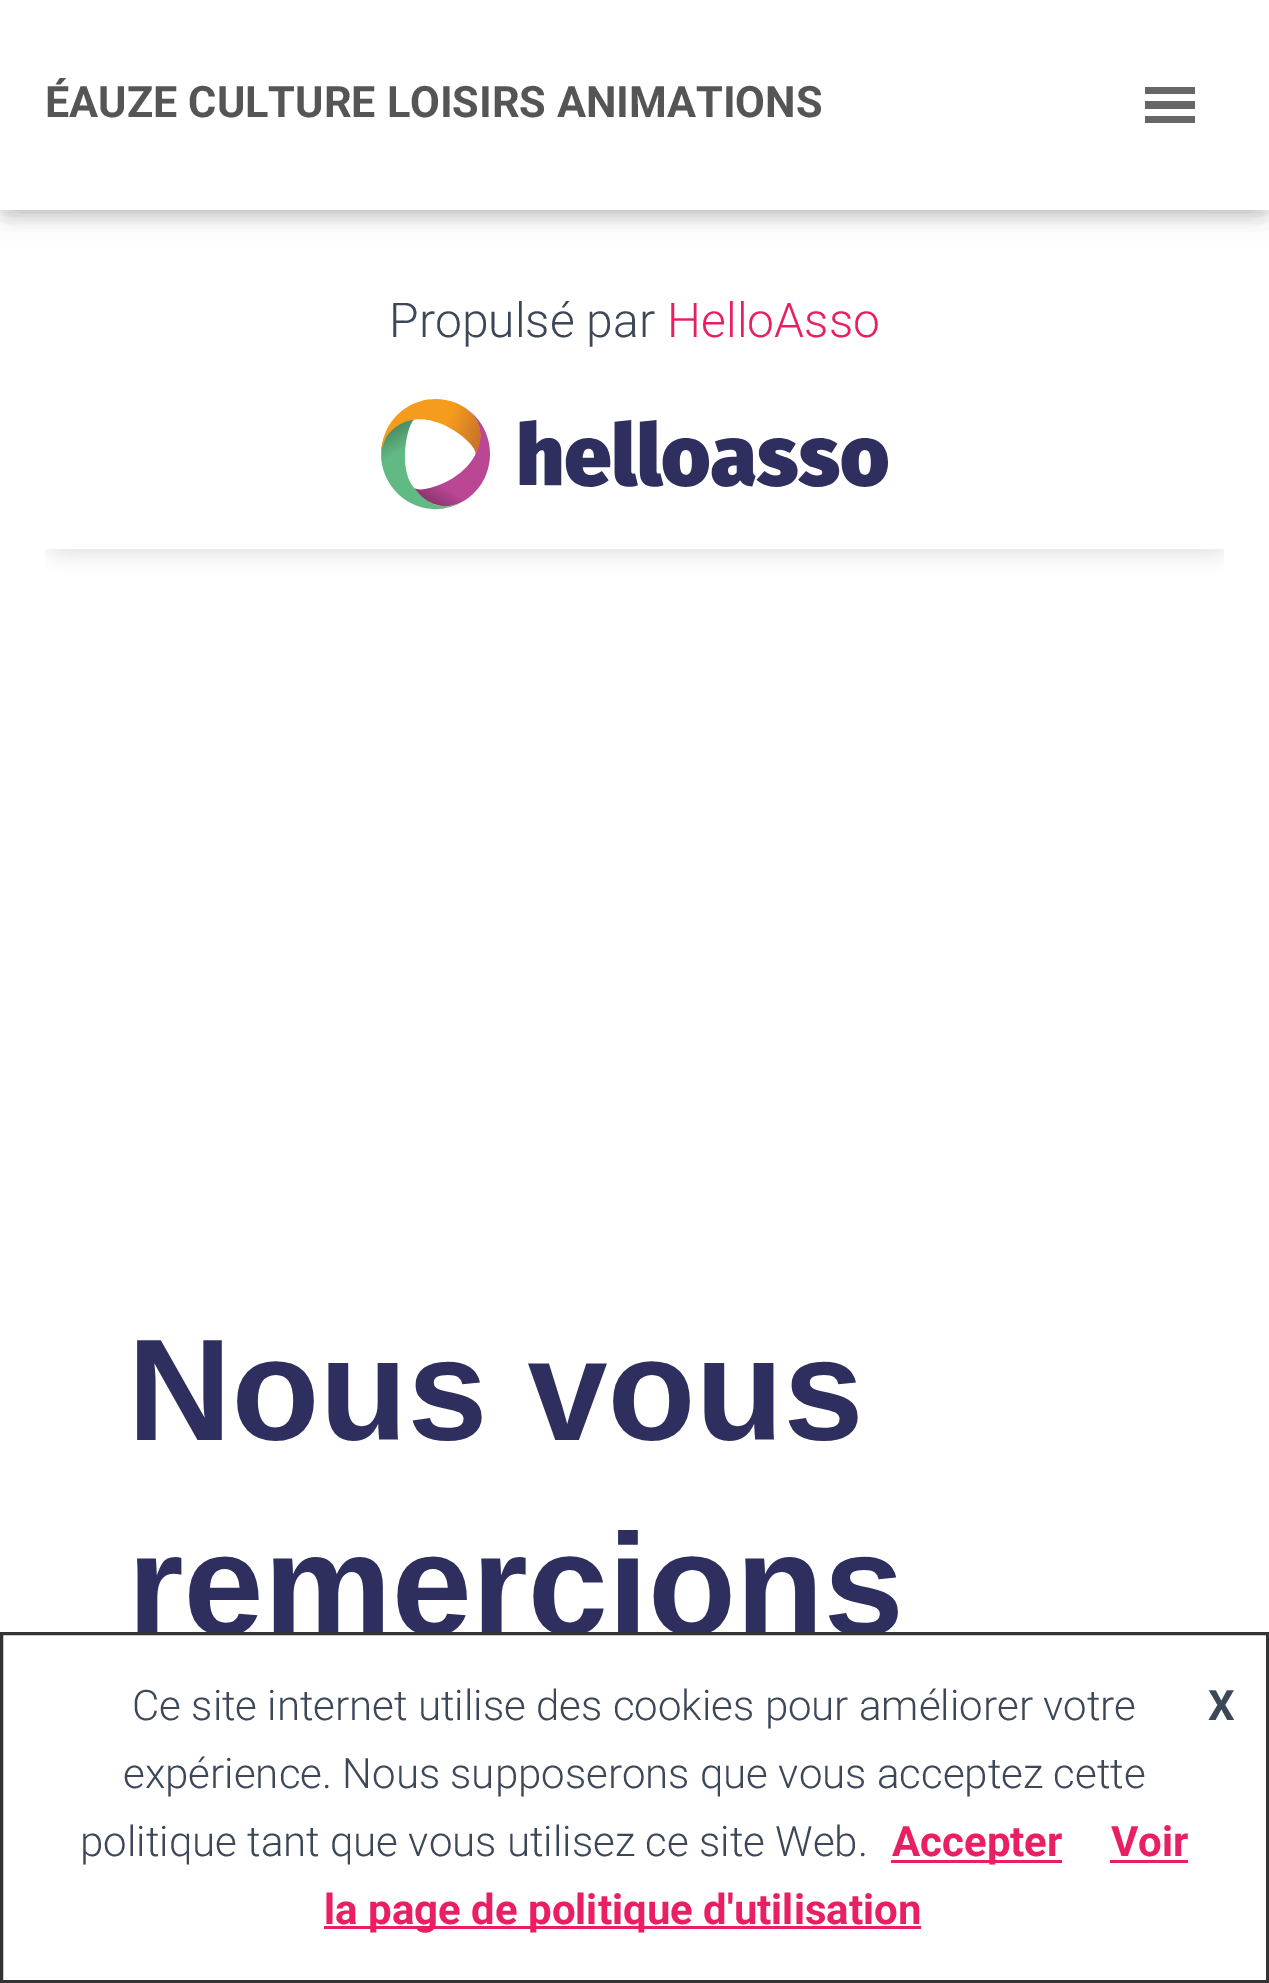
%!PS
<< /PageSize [1269 1983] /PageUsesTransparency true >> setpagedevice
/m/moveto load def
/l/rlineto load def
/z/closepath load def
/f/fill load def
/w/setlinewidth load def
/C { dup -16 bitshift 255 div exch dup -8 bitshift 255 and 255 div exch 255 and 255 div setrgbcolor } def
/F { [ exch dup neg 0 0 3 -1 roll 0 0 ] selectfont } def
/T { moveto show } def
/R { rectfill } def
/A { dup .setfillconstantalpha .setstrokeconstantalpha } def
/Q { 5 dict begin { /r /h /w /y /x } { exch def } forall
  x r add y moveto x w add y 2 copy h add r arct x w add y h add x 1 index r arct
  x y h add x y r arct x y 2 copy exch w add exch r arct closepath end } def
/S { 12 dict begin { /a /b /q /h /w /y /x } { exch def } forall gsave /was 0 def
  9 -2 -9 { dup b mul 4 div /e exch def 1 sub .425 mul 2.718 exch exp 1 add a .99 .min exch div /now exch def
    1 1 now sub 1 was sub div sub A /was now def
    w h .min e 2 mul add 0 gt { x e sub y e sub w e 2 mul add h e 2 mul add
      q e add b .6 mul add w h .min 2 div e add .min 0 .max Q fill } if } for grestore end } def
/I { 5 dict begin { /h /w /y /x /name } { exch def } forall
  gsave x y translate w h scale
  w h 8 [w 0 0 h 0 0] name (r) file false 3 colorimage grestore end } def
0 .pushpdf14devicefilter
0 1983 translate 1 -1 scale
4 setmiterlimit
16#FFFFFF C
0 0 1269 1983 R
(1.rgb) 45 210 1179 1 I
16#000000 C
6 18 1257 198 0 7.5 .1 S
0 3 1269 210 0 15 .12 S
18 21 1233 174 0 15 .42 S
16#FFFFFF C
0 0 1269 210 R
/Roboto-Bold 43.25 F
16#555555 C
(ÉAUZE CULTURE LOISIRS ANIMATIONS) 45 117 T
16#666666 C
1145 123 m 50 0 l 0 -7 l -50 0 l z 1145 87 m 0 7 l 50 0 l 0 -7 l z 1145 109 m 50 0 l 0 -8 l -50 0 l z f
/Roboto-Light 48 F
16#3C4858 C
(Propulsé par) 389 337 T
16#E91E63 C
(HelloAsso) 667 337 T
(2.rgb) 45 399 1179 1233 I
16#333333 C
3 w
1.5 1633.5 1266 348 rectstroke
/Roboto-Light 42 F
16#3C4858 C
(Ce site internet utilise des cookies pour améliorer votre) 132 1720 T
/Roboto-Bold 42 F
(X) 1208 1720 T
/Roboto-Light 42 F
(expérience. Nous supposerons que vous acceptez cette) 123 1788 T
(politique tant que vous utilisez ce site Web.) 80 1856 T
16#E91E63 C
891 1860 171 3 R
/Roboto-Bold 42 F
(Accepter) 892 1856 T
(Voir) 1111 1856 T
1110 1860 78 3 R
324 1926 597 3 R
(la page de politique d'utilisation) 324 1924 T
.poppdf14devicefilter showpage
